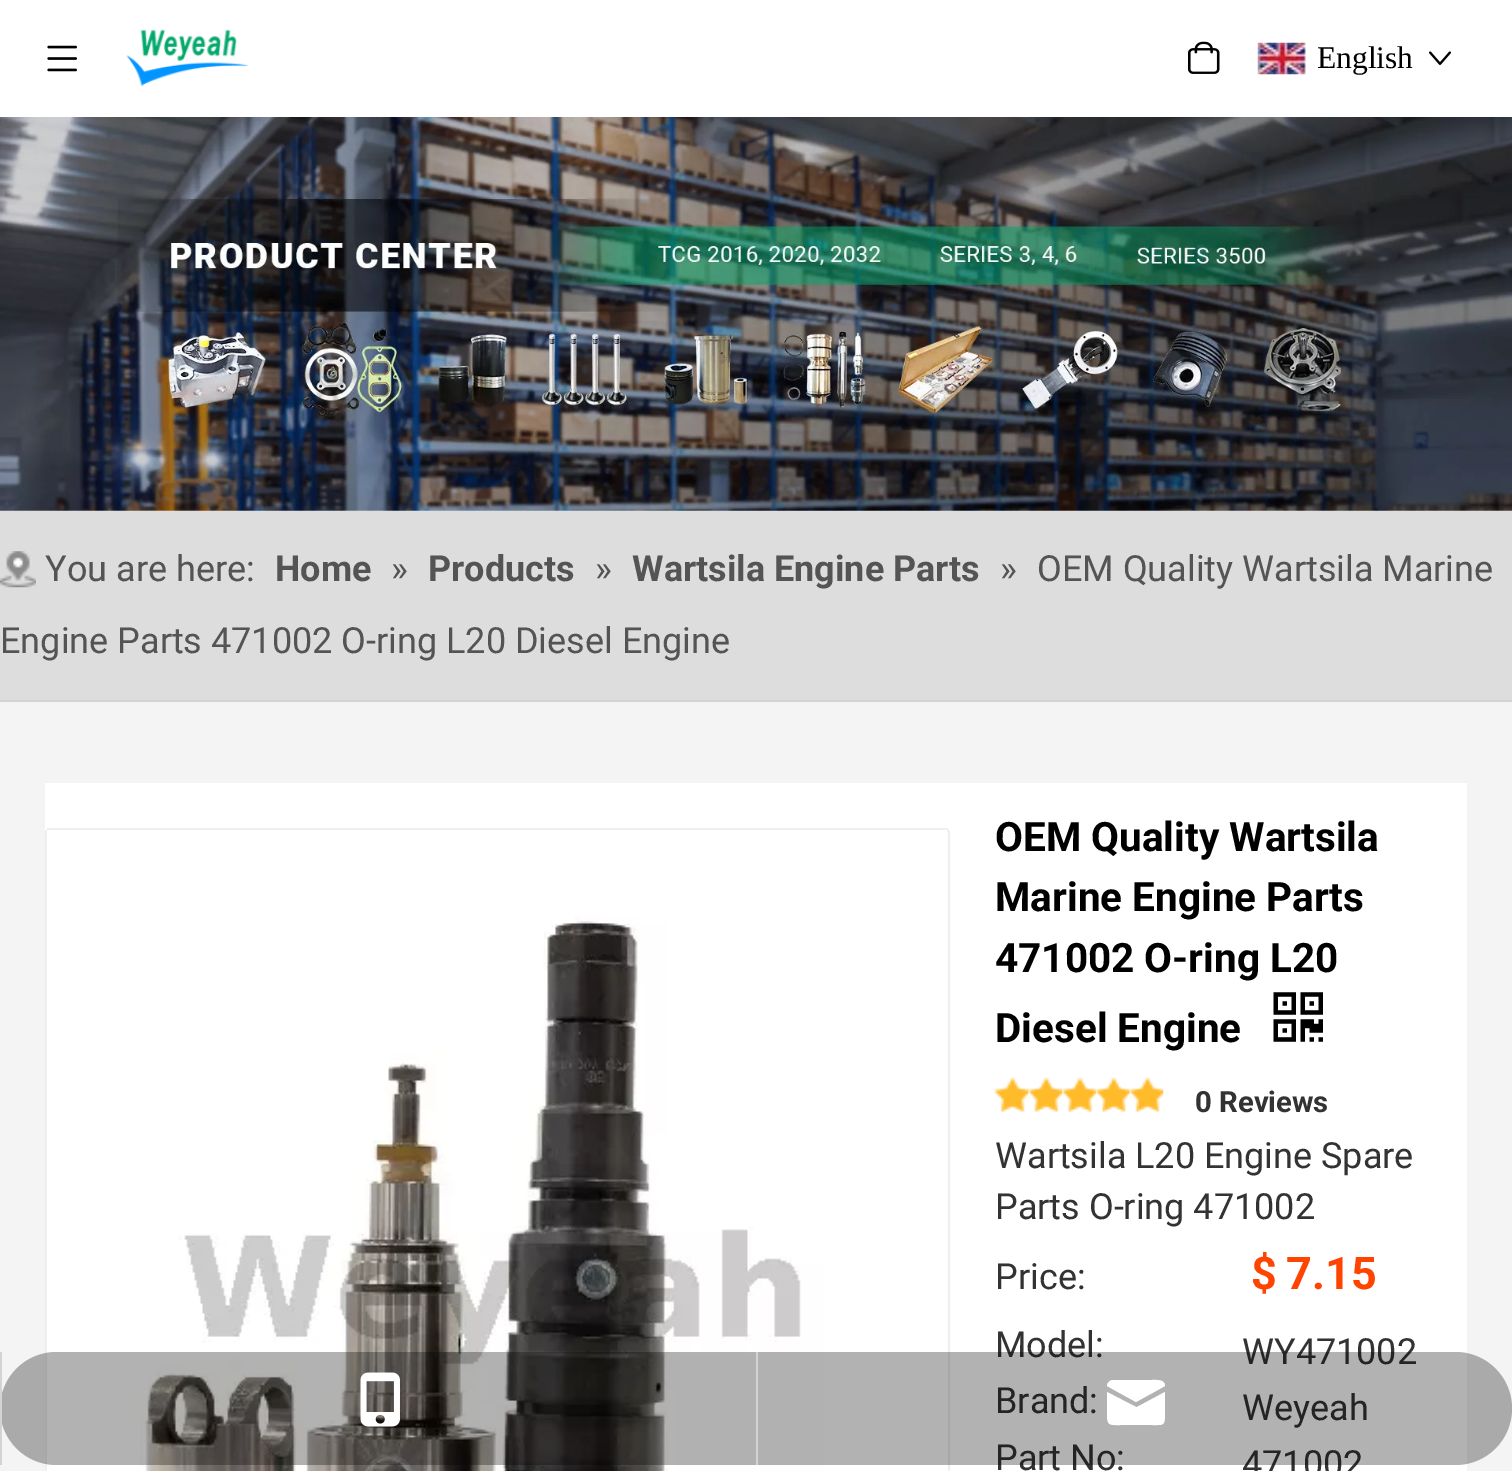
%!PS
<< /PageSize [1512 1471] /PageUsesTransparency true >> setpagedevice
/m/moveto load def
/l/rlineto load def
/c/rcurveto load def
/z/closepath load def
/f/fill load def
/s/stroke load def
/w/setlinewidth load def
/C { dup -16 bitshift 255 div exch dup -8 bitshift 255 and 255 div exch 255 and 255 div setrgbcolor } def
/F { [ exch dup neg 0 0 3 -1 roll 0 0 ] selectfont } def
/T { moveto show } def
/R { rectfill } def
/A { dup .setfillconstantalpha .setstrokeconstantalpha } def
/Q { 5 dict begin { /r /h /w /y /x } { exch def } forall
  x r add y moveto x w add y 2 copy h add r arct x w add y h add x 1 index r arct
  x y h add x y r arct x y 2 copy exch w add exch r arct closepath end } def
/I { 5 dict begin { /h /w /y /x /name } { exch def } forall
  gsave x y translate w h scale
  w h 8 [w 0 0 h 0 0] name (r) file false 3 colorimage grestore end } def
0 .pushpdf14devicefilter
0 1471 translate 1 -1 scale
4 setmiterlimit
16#F4F4F4 C
0 0 1512 1471 R
16#FFFFFF C
0 0 1512 117 R
(1.rgb) 47 45 30 27 I
(2.rgb) 126 29 123 57 I
(3.rgb) 1188 41 32 33 I
(4.rgb) 1257 42 49 33 I
/LiberationSerif-Regular 31.5 F
16#000000 C
(English) 1317 68 T
(5.rgb) 1429 51 22 14 I
(6.rgb) 0 117 1512 394 I
16#DDDDDD C
0 511 1512 189 R
16#D3D3D3 C
0 700 1512 2 R
(7.rgb) 0 551 36 37 I
/Roboto-Regular 36 F
16#545454 C
(You are here:) 45 581 T
/Roboto-Bold 36 F
(Home) 275 581 T
/Roboto-Regular 36 F
(») 391 581 T
/Roboto-Bold 36 F
(Products) 428 581 T
/Roboto-Regular 36 F
(») 595 581 T
/Roboto-Bold 36 F
(Wartsila Engine Parts) 632 581 T
/Roboto-Regular 36 F
(») 1000 581 T
(OEM Quality Wartsila Marine) 1037 581 T
(Engine Parts 471002 O-ring L20 Diesel Engine) 0 653 T
16#FFFFFF C
45 783 1422 688 R
16#EFEFEF C
2 w
46 829 903 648 4 Q s
(8.rgb) 47 830 900 641 I
/Roboto-Bold 40.5 F
16#000000 C
(OEM Quality Wartsila) 995 851 T
(Marine Engine Parts) 995 911 T
(471002 O-ring L20) 995 972 T
(Diesel Engine) 995 1042 T
(9.rgb) 1273 992 50 50 I
(10.rgb) 994 1077 35 35 I
(11.rgb) 1028 1077 34 35 I
(12.rgb) 1062 1077 34 35 I
(13.rgb) 1095 1077 35 35 I
(14.rgb) 1129 1077 35 35 I
/Roboto-Bold 29.25 F
16#333333 C
(0 Reviews) 1195 1112 T
/Roboto-Regular 36 F
(Wartsila L20 Engine Spare) 995 1168 T
(Parts O-ring 471002) 995 1219 T
(Price:) 995 1289 T
/Roboto-Bold 45 F
16#FF4400 C
($) 1251 1289 T
(7.15) 1286 1289 T
/Roboto-Regular 36 F
16#333333 C
(Model:) 995 1357 T
(WY471002) 1242 1364 T
(Brand:) 995 1413 T
(Weyeah) 1242 1420 T
(Part No:) 995 1470 T
(471002) 1242 1476 T
0.3 A
16#000000 C
0 1352 1512 113 56.5 Q f
1 A
16#D3D3D3 C
0 1352 2 113 R
(15.rgb) 360 1372 40 55 I
756 1352 2 113 R
16#FFFFFF C
1113 1380 m 39 0 l 4 0 13 -1 13 6 c -29 16 l -29 -16 l 0 -3 3 -6 6 -6 c z 1107 1392 m 0 23 l 0 11 3 10 14 10 c 31 0 l 11 0 13 1 13 -10 c 0 -23 l -28 15 l -1 0 l z f
.poppdf14devicefilter showpage
